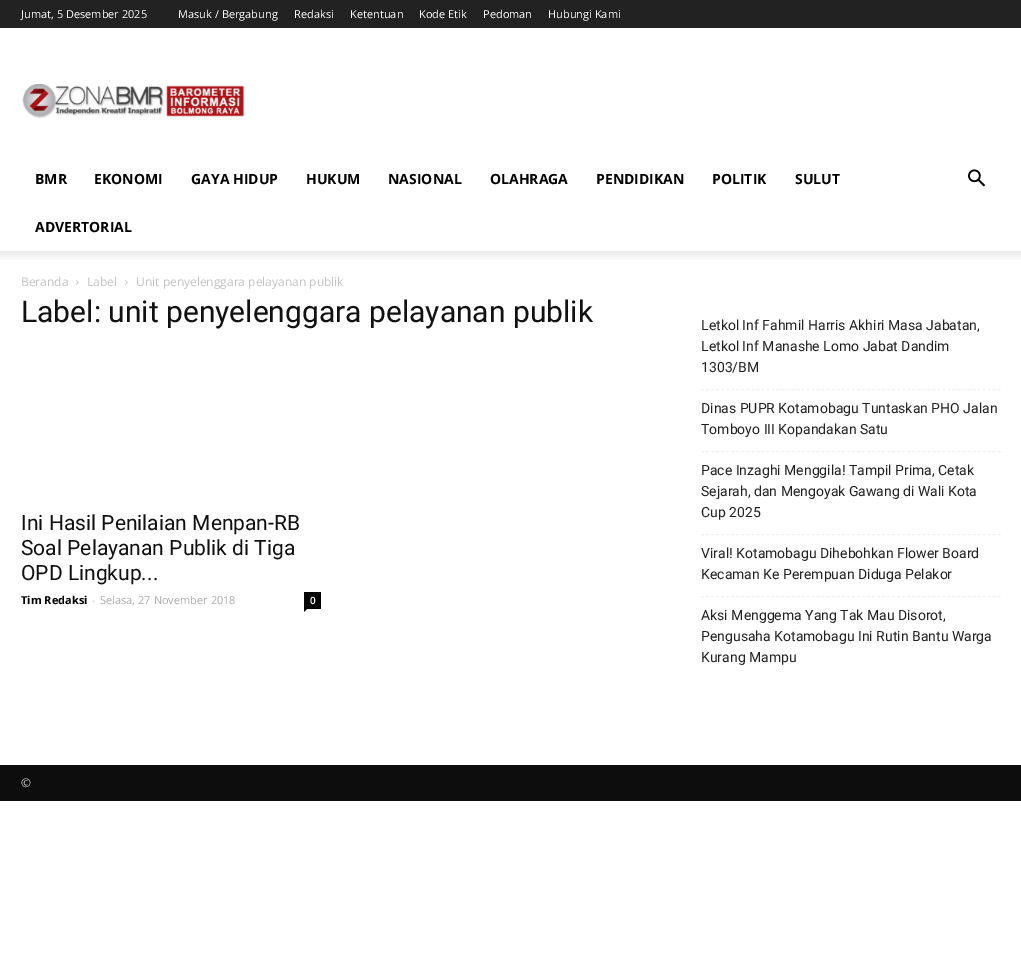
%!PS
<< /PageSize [1021 956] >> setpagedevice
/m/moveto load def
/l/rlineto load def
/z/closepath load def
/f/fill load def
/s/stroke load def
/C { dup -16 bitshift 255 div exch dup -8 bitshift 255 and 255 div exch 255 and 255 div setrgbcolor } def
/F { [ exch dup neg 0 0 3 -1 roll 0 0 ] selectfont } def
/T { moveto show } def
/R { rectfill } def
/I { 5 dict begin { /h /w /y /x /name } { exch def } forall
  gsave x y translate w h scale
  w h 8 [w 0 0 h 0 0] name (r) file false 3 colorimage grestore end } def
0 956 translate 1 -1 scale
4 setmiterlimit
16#FFFFFF C
0 0 1021 956 R
16#222222 C
0 0 1021 28 R
/OpenSans-Regular 11 F
16#FFFFFF C
(Jumat, 5 Desember 2025) 21 18 T
(Masuk / Bergabung) 178 18 T
(Redaksi) 294 18 T
(Ketentuan) 350 18 T
(Kode Etik) 419 18 T
(Pedoman) 483 18 T
(Hubungi Kami) 548 18 T
(1.rgb) 22 84 223 34 I
/OpenSans-Bold 14 F
16#000000 C
(BMR) 35 184 T
(EKONOMI) 94 184 T
(GAYA HIDUP) 191 184 T
(HUKUM) 306 184 T
(NASIONAL) 388 184 T
(OLAHRAGA) 490 184 T
(PENDIDIKAN) 596 184 T
(POLITIK) 712 184 T
(SULUT) 795 184 T
(ADVERTORIAL) 35 232 T
(2.rgb) 968 169 17 18 I
(3.rgb) 0 251 1021 9 I
/OpenSans-Regular 12 F
16#C3C3C3 C
(Beranda) 21 286 T
(4.rgb) 76 280 3 5 I
(Label) 87 286 T
(4.rgb) 125 280 3 5 I
(Unit penyelenggara pelayanan publik) 136 286 T
/Roboto-Regular 30 F
16#111111 C
(Label: unit penyelenggara pelayanan publik) 21 322 T
/Roboto-Regular 21 F
(Ini Hasil Penilaian Menpan-RB) 21 530 T
(Soal Pelayanan Publik di Tiga) 21 555 T
(OPD Lingkup...) 21 580 T
/OpenSans-Bold 11 F
16#000000 C
(Tim Redaksi) 21 604 T
/OpenSans-Regular 11 F
16#CCCCCC C
(-) 92 604 T
16#AAAAAA C
(Selasa, 27 November 2018) 100 604 T
16#000000 C
304 592 17 17 R
/OpenSans-SemiBold 10 F
16#FFFFFF C
(0) 310 604 T
16#000000 C
304 609 m 3 0 l -3 3 l z f
16#F1F1F1 C
[3 2.03] 0 setdash
701 389.5 m 300 0 l s
/Roboto-Regular 14 F
16#222222 C
(Letkol Inf Fahmil Harris Akhiri Masa Jabatan,) 701 330 T
(Letkol Inf Manashe Lomo Jabat Dandim) 701 351 T
(1303/BM) 701 372 T
16#F1F1F1 C
701 451.5 m 300 0 l s
16#222222 C
(Dinas PUPR Kotamobagu Tuntaskan PHO Jalan) 701 413 T
(Tomboyo III Kopandakan Satu) 701 434 T
16#F1F1F1 C
701 534.5 m 300 0 l s
16#222222 C
(Pace Inzaghi Menggila! Tampil Prima, Cetak) 701 475 T
(Sejarah, dan Mengoyak Gawang di Wali Kota) 701 496 T
(Cup 2025) 701 517 T
16#F1F1F1 C
701 596.5 m 300 0 l s
16#222222 C
(Viral! Kotamobagu Dihebohkan Flower Board) 701 558 T
(Kecaman Ke Perempuan Diduga Pelakor) 701 579 T
(Aksi Menggema Yang Tak Mau Disorot,) 701 620 T
(Pengusaha Kotamobagu Ini Rutin Bantu Warga) 701 641 T
(Kurang Mampu) 701 662 T
16#0D0D0D C
0 765 1021 36 R
/OpenSans-Regular 12 F
16#CCCCCC C
(©) 21 787 T
showpage
